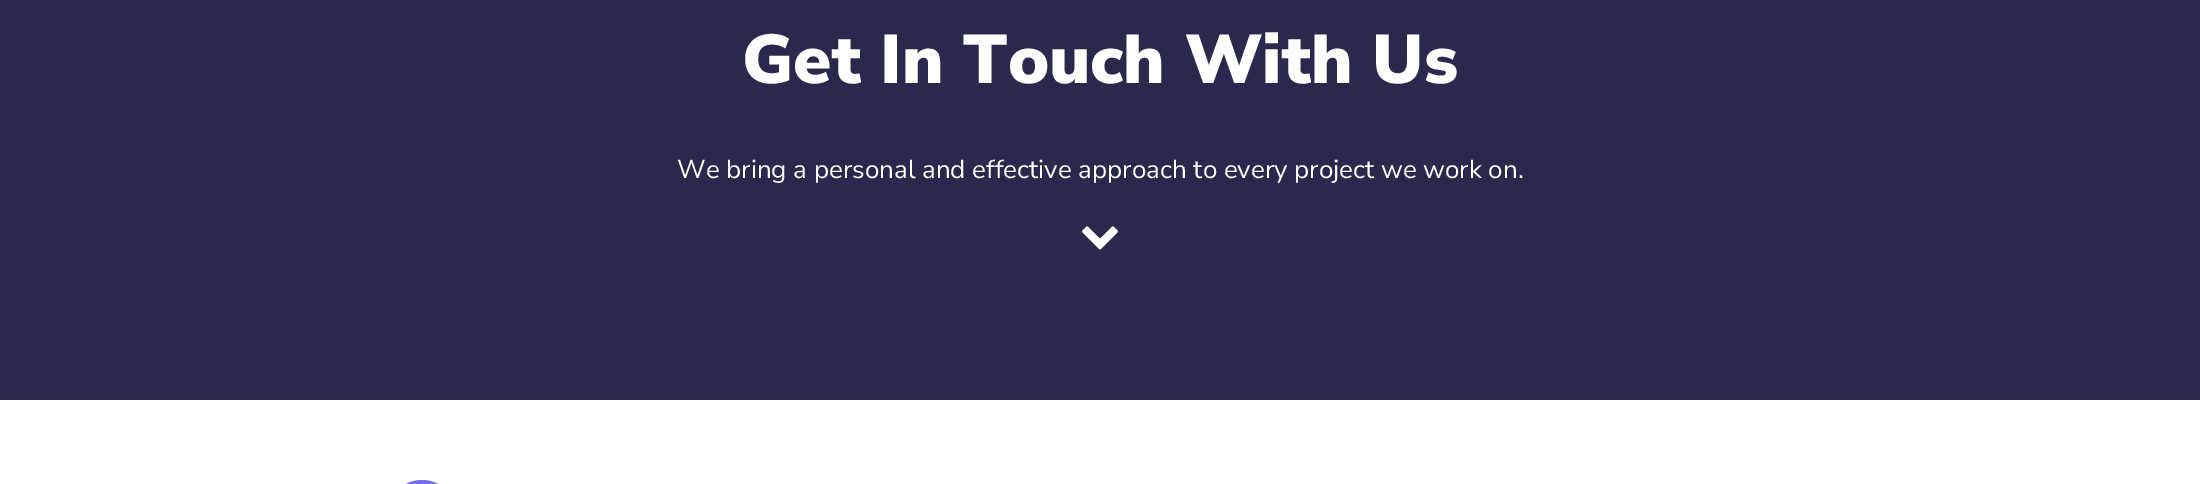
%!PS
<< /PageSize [2200 484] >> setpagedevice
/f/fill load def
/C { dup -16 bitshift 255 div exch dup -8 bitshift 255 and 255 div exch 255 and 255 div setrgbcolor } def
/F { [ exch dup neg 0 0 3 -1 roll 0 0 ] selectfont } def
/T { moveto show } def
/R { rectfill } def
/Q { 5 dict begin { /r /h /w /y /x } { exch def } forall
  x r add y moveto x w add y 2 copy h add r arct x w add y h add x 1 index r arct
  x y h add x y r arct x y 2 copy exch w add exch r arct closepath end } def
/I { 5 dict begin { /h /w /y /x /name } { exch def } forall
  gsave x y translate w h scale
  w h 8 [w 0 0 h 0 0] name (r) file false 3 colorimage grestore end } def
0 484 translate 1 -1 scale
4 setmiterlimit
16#FFFFFF C
0 0 2200 484 R
16#2B284E C
0 0 2200 400 R
/NunitoSans-Black 68.75 F
16#FFFFFF C
(Get In Touch With Us) 742 83 T
/NunitoSans-Regular 26 F
(We bring a personal and effective approach to every project we work on.) 677 178 T
(1.rgb) 1082 226 36 24 I
16#776DEB C
388 480 68 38 34 Q f
showpage
